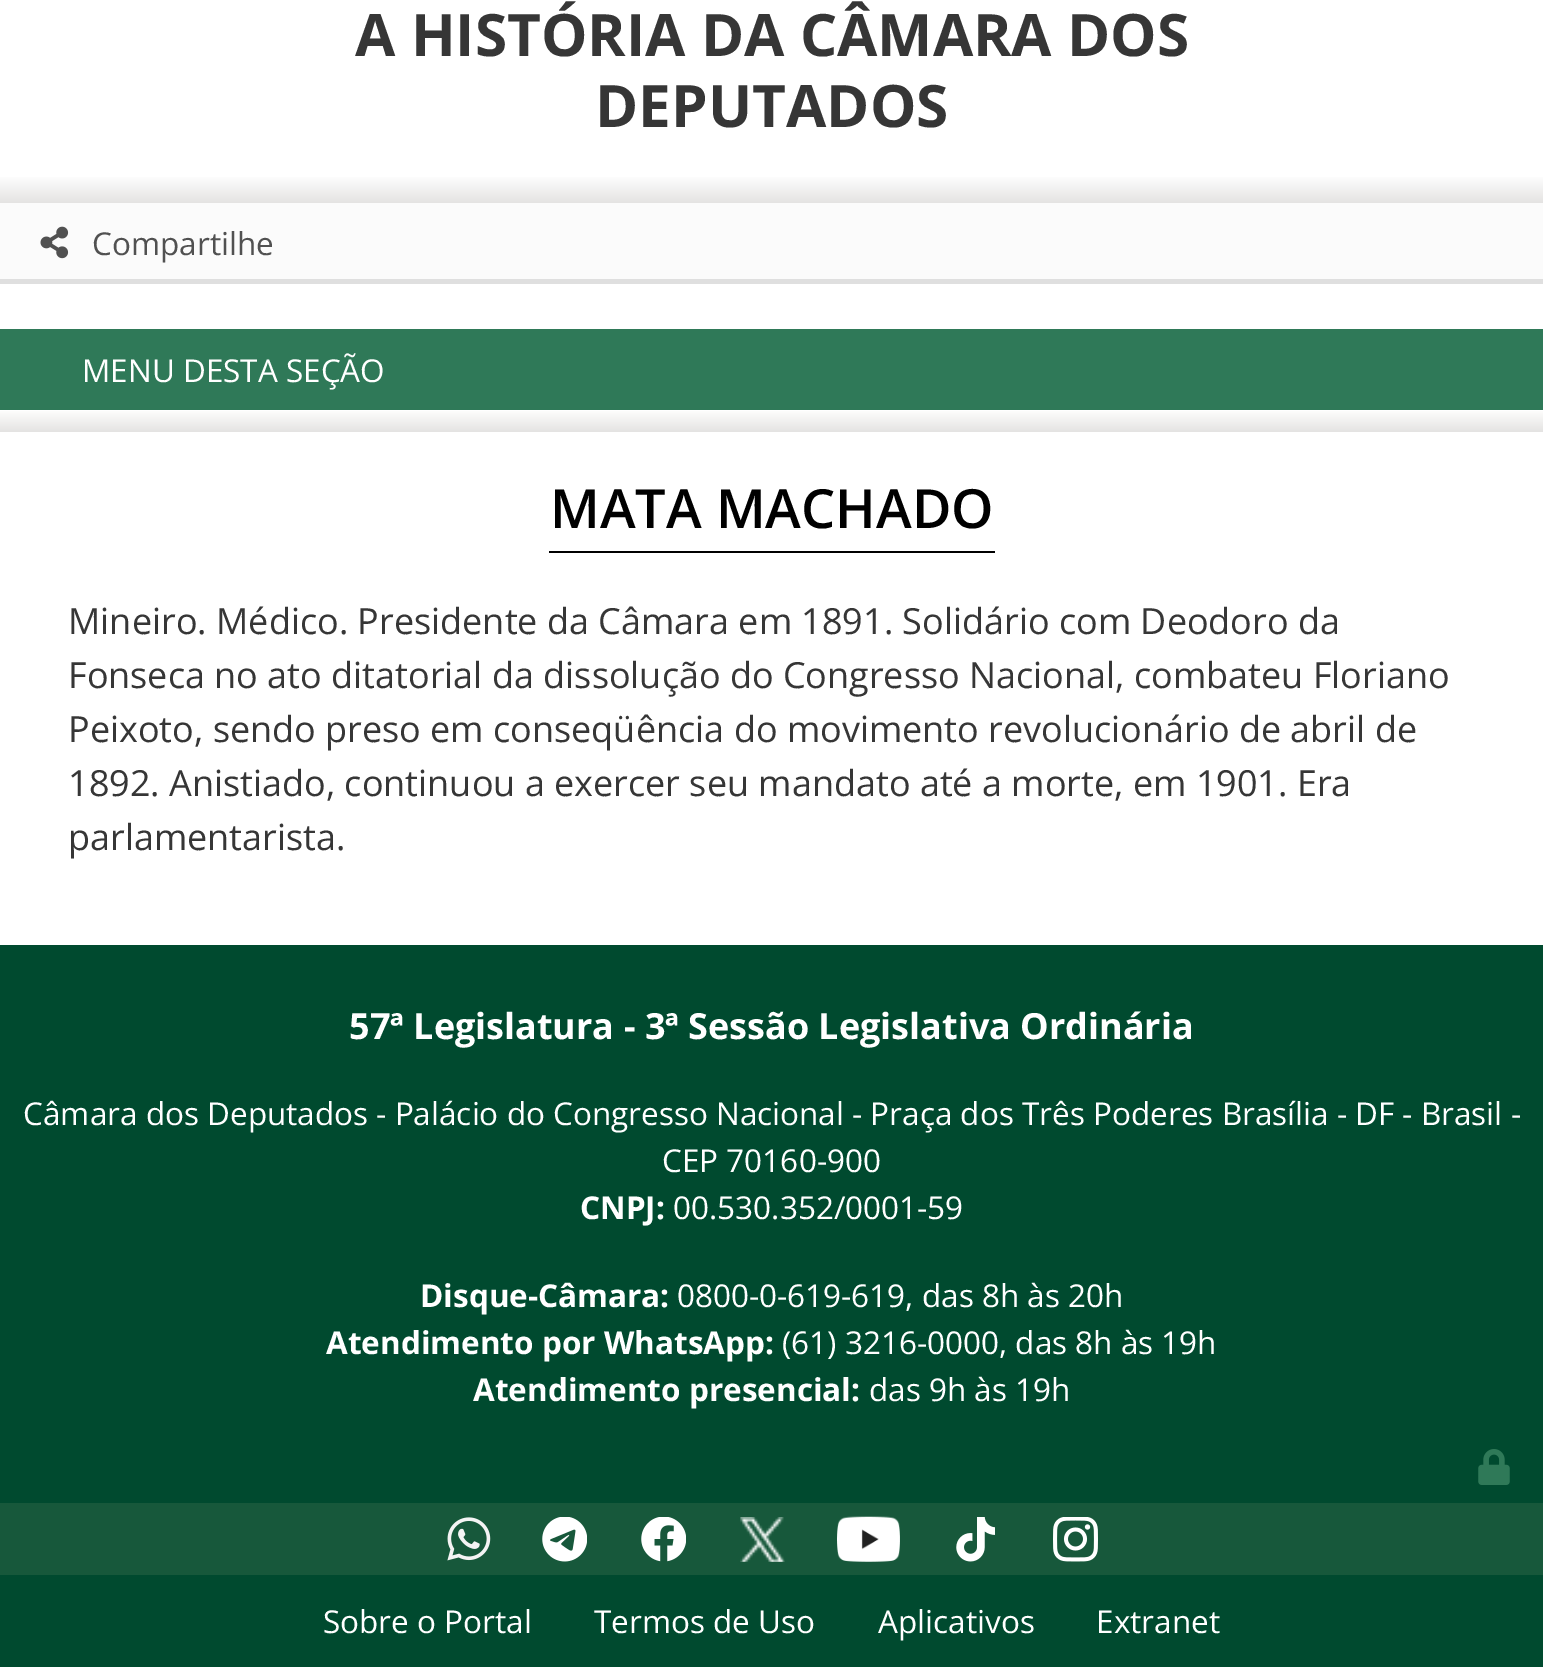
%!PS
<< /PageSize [1543 1667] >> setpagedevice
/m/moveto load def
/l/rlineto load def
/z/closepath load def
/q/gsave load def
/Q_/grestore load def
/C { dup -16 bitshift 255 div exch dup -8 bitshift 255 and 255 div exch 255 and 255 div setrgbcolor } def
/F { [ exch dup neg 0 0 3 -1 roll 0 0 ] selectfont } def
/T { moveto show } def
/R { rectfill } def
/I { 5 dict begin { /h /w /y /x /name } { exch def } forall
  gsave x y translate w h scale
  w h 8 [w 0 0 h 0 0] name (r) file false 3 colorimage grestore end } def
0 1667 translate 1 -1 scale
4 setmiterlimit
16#FFFFFF C
0 0 1543 1667 R
/OpenSans-Bold 58.5 F
16#363636 C
(A HISTÓRIA DA CÂMARA DOS) 355 56 T
(DEPUTADOS) 595 127 T
q 0 177 m 1543 0 l 0 26 l -1543 0 l z clip newpath
<< /ShadingType 2 /ColorSpace /DeviceRGB /Coords [772 175 772 203] /Extend [true true] /Function << /FunctionType 2 /Domain [0 1] /C0 [1 1 1] /C1 [.894 .89 .886] /N 1 >> >> shfill Q_
16#FBFBFB C
0 203 1543 76 R
16#DFDFDF C
0 279 1543 5 R
(1.rgb) 40 226 29 33 I
/OpenSans-Regular 31.5 F
16#515151 C
(Compartilhe) 92 255 T
16#2F7958 C
0 329 1543 81 R
16#FFFFFF C
(MENU DESTA SEÇÃO) 82 382 T
q 0 411 m 1543 0 l 0 21 l -1543 0 l z clip newpath
<< /ShadingType 2 /ColorSpace /DeviceRGB /Coords [772 409 772 432] /Extend [true true] /Function << /FunctionType 2 /Domain [0 1] /C0 [1 1 1] /C1 [.894 .89 .886] /N 1 >> >> shfill Q_
16#000000 C
549 551 446 2 R
/OpenSans-SemiBold 54 F
(MATA MACHADO) 550 528 T
/OpenSans-Regular 36 F
16#363636 C
(Mineiro. Médico. Presidente da Câmara em 1891. Solidário com Deodoro da) 68 634 T
(Fonseca no ato ditatorial da dissolução do Congresso Nacional, combateu Floriano) 68 688 T
(Peixoto, sendo preso em conseqüência do movimento revolucionário de abril de) 68 742 T
(1892. Anistiado, continuou a exercer seu mandato até a morte, em 1901. Era) 68 796 T
(parlamentarista.) 68 850 T
16#004A2F C
0 945 1543 558 R
/OpenSans-Bold 36 F
16#FFFFFF C
(57ª Legislatura - 3ª Sessão Legislativa Ordinária) 349 1039 T
/OpenSans-Regular 31.5 F
(Câmara dos Deputados - Palácio do Congresso Nacional - Praça dos Três Poderes Brasília - DF - Brasil -) 23 1125 T
(CEP 70160-900) 662 1172 T
/OpenSans-Bold 31.5 F
(CNPJ:) 580 1219 T
/OpenSans-Regular 31.5 F
(00.530.352/0001-59) 673 1219 T
/OpenSans-Bold 31.5 F
(Disque-Câmara:) 420 1307 T
/OpenSans-Regular 31.5 F
(0800-0-619-619, das 8h às 20h) 677 1307 T
/OpenSans-Bold 31.5 F
(Atendimento por WhatsApp:) 326 1354 T
/OpenSans-Regular 31.5 F
(\(61\) 3216-0000, das 8h às 19h) 782 1354 T
/OpenSans-Bold 31.5 F
(Atendimento presencial:) 473 1401 T
/OpenSans-Regular 31.5 F
(das 9h às 19h) 869 1401 T
(2.rgb) 1478 1449 32 36 I
16#17583B C
0 1503 1543 72 R
(3.rgb) 447 1517 44 44 I
(4.rgb) 542 1517 45 45 I
(5.rgb) 641 1517 45 45 I
(6.rgb) 740 1517 45 45 I
(7.rgb) 837 1516 63 46 I
(8.rgb) 956 1517 39 45 I
(9.rgb) 1053 1517 45 45 I
16#004A2F C
0 1575 1543 92 R
16#FFFFFF C
(Sobre o Portal) 323 1633 T
(Termos de Uso) 594 1633 T
(Aplicativos) 878 1633 T
(Extranet) 1096 1633 T
showpage
